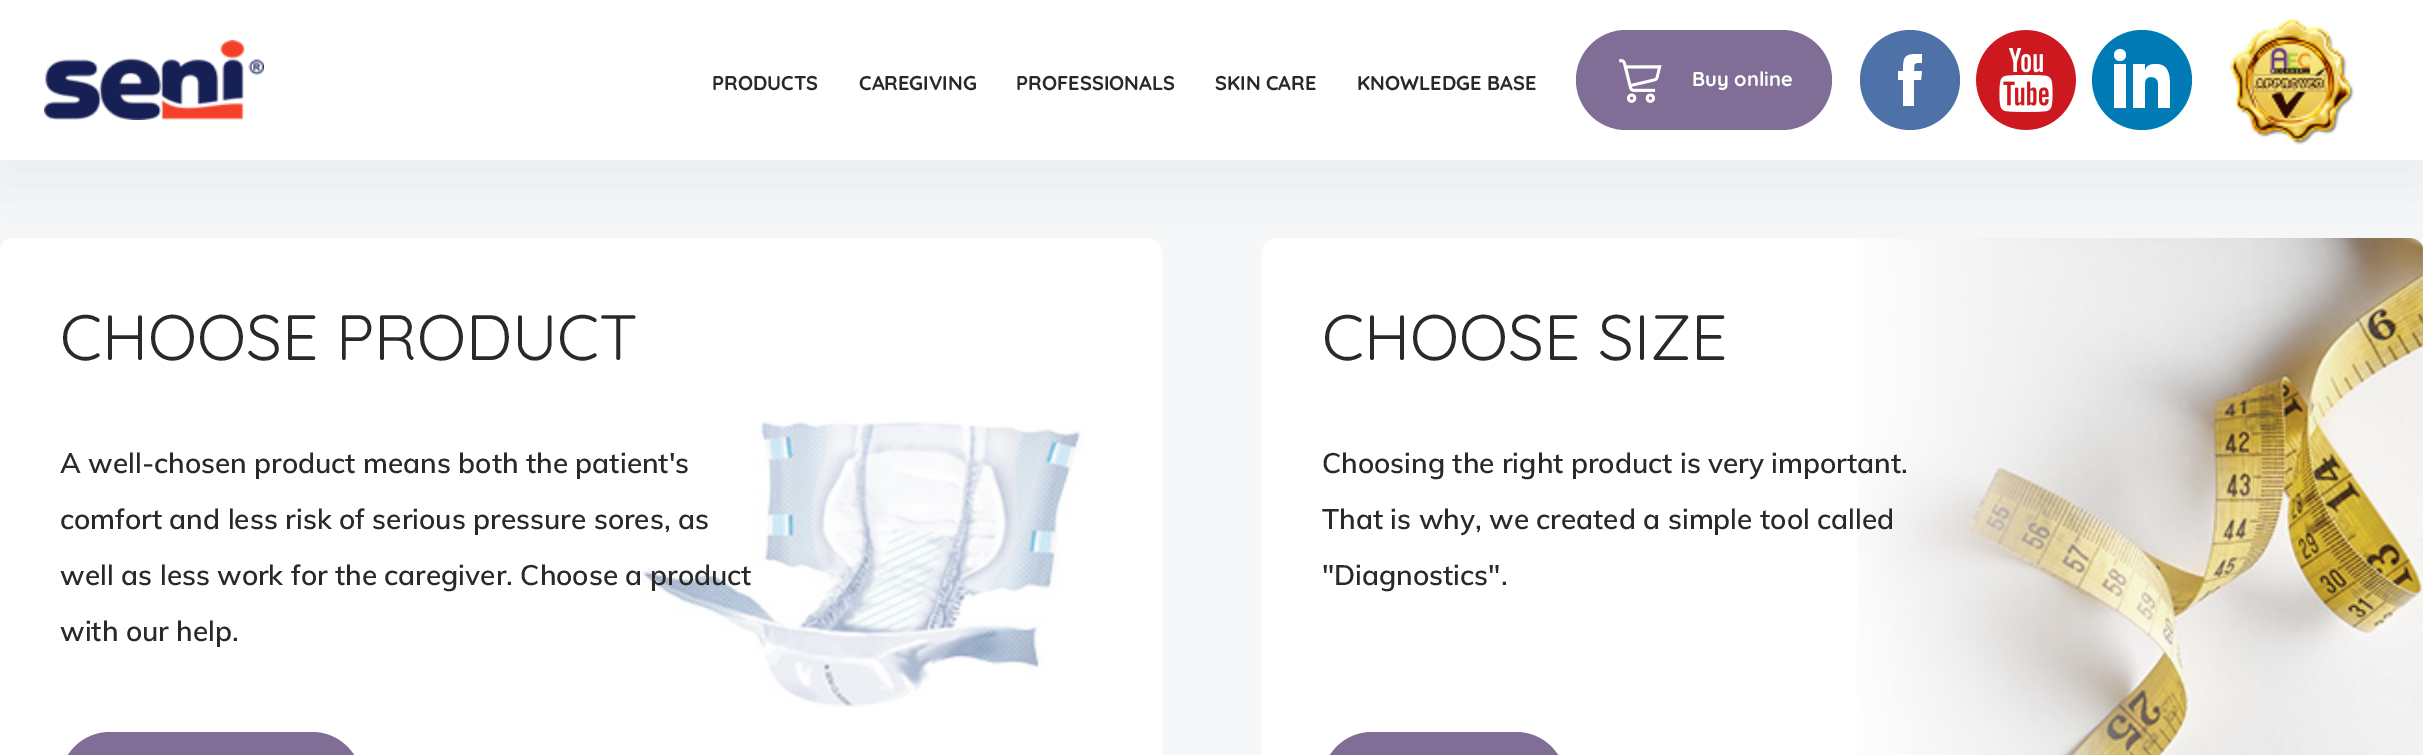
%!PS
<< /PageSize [2423 755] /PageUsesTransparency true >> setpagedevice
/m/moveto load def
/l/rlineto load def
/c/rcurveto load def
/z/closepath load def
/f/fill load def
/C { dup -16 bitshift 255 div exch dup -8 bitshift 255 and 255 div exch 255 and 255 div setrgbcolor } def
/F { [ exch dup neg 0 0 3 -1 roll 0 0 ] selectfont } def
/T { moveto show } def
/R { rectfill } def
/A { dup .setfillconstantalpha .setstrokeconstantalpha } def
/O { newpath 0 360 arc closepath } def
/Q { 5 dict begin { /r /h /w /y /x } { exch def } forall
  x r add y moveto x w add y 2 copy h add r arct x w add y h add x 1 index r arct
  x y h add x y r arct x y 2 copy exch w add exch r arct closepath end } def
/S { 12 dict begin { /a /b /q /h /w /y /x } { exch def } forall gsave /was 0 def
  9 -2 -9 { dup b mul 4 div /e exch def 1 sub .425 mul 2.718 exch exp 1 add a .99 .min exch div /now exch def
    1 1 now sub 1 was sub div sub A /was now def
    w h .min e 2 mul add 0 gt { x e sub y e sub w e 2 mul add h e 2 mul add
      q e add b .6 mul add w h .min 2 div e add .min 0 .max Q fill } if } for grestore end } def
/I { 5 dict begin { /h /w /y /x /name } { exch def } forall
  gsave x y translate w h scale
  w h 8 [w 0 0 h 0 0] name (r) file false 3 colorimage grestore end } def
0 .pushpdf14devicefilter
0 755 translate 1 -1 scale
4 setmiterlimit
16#F5F7F9 C
0 0 2423 755 R
16#FFFFFF C
0 238 1162 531 14 Q f
1262 238 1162 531 14 Q f
(6.rgb) 1857 238 566 517 I
16#11264D C
0 20 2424 160 0 35 .05 S
16#FFFFFF C
0 0 2423 160 R
(1.rgb) 44 40 220 80 I
/Quicksand-Bold 20 F
16#2B2827 C
(PRODUCTS) 712 90 T
(CAREGIVING) 859 90 T
(PROFESSIONALS) 1016 90 T
(SKIN CARE) 1215 90 T
(KNOWLEDGE BASE) 1357 90 T
16#806E96 C
1576 30 256 100 50 Q f
(2.rgb) 1619 59 43 44 I
16#FFFFFF C
(Buy online) 1692 86 T
16#4E71A8 C
1910 80 50 O f
16#FFFFFF C
1922 71 m -8 0 l 0 -9 0 -8 8 -8 c 0 -9 l -16 0 -19 0 -19 17 c -5 0 l 0 9 l 5 0 l 0 26 l 11 0 l 0 -26 l 7 0 l z f
(3.rgb) 1976 30 100 100 I
16#007BB5 C
2142 80 50 O f
16#FFFFFF C
2120 55 6 O f
2114 64 12 44 R
2156 64 m -9 0 -10 4 -11 7 c 0 -7 l -12 0 l 0 44 l 12 0 l 0 -25 l 0 -4 2 -6 6 -6 c 4 0 7 2 7 6 c 0 25 l 12 0 l 0 -22 l 0 -12 -2 -22 -14 -22 c z f
(4.rgb) 2229 19 126 126 I
(5.rgb) 642 421 443 286 I
/Quicksand-Regular 64 F
16#2B2827 C
(CHOOSE PRODUCT) 60 360 T
/Muli-SemiBold 28 F
(A well-chosen product means both the patient's) 60 473 T
(comfort and less risk of serious pressure sores, as) 60 529 T
(well as less work for the caregiver. Choose a product) 60 585 T
(with our help.) 60 641 T
16#806E96 C
60 732 302 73 50 Q f
/Quicksand-Regular 64 F
16#2B2827 C
(CHOOSE SIZE) 1322 360 T
/Muli-SemiBold 28 F
(Choosing the right product is very important.) 1322 473 T
(That is why, we created a simple tool called) 1322 529 T
("Diagnostics".) 1322 585 T
16#806E96 C
1322 732 244 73 50 Q f
.poppdf14devicefilter showpage
